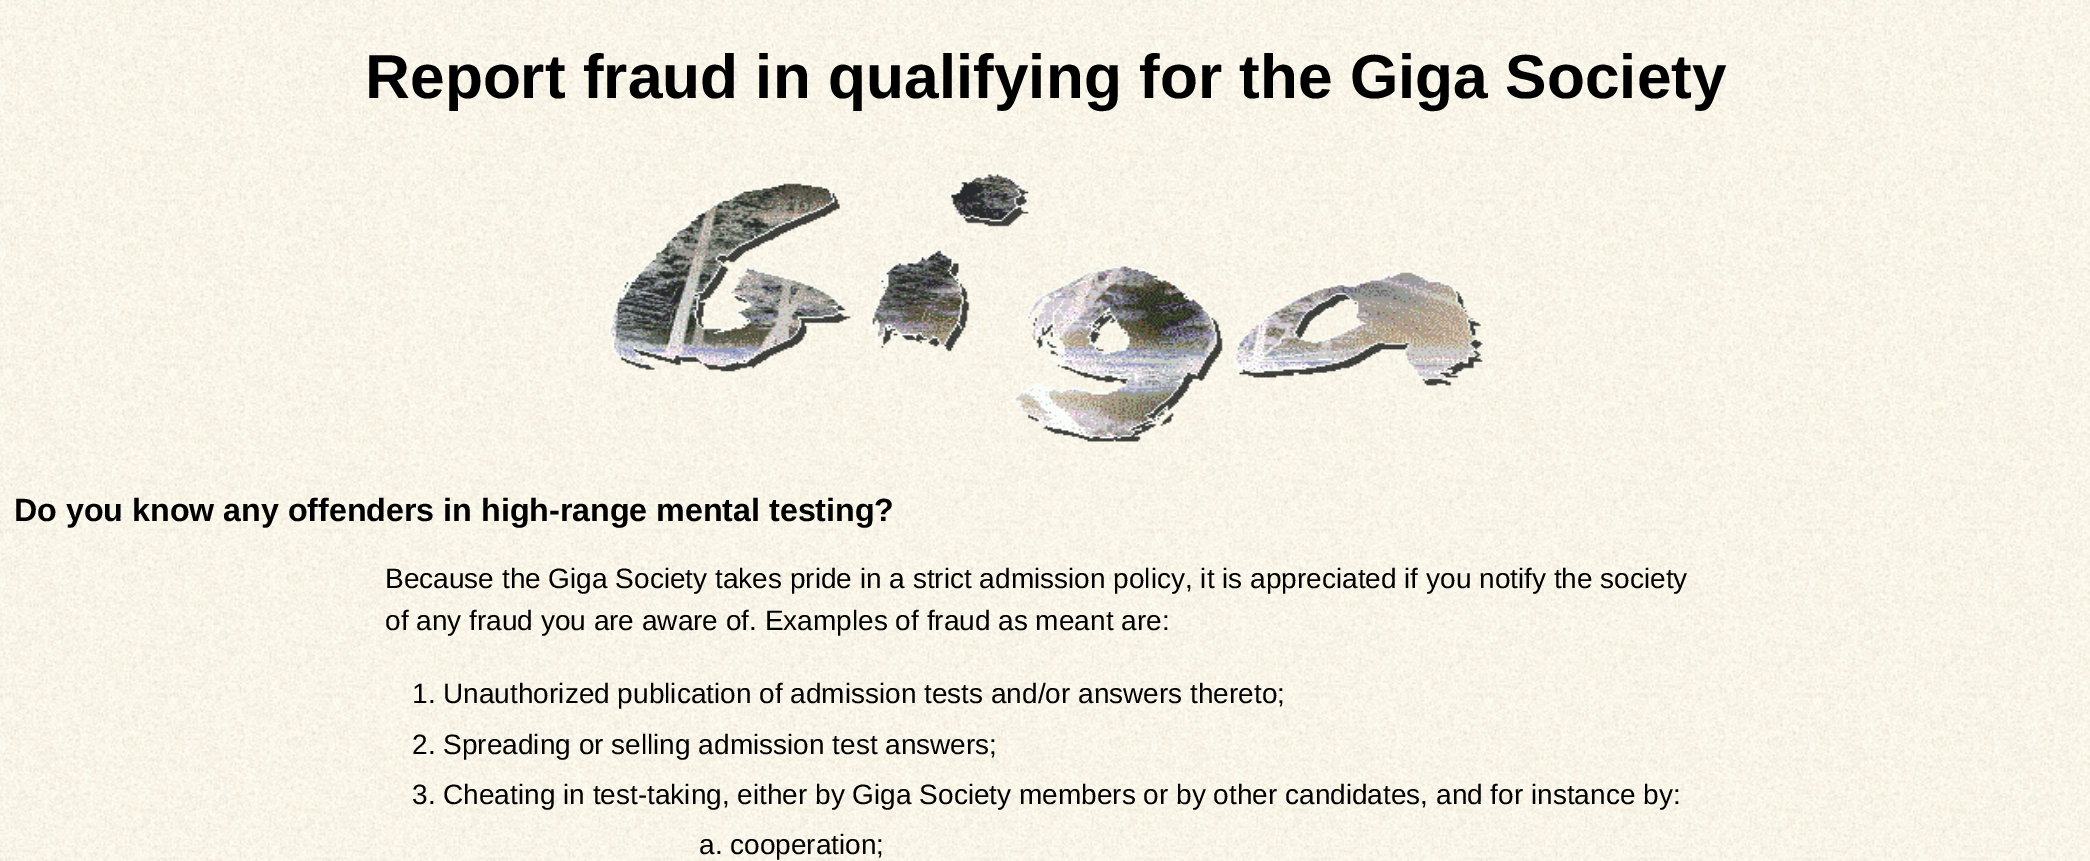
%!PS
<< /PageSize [2090 861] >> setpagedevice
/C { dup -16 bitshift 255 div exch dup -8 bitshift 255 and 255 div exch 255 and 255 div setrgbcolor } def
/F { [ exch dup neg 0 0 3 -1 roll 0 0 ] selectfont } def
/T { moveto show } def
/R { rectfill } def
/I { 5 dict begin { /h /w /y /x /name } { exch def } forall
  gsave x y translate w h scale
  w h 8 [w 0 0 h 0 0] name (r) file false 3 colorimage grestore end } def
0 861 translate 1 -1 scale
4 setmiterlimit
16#FFFFFF C
0 0 2090 861 R
(1.rgb) 0 0 2090 861 I
/LiberationSans-Bold 62.2 F
16#000000 C
(Report fraud in qualifying for the Giga Society) 365 98 T
(2.rgb) 609 172 874 270 I
/LiberationSans-Bold 32.2 F
(Do you know any offenders in high-range mental testing?) 14 521 T
/LiberationSans-Regular 28 F
(Because the Giga Society takes pride in a strict admission policy, it is appreciated if you notify the society) 385 588 T
(of any fraud you are aware of. Examples of fraud as meant are:) 385 630 T
(1. Unauthorized publication of admission tests and/or answers thereto;) 412 703 T
(2. Spreading or selling admission test answers;) 412 754 T
(3. Cheating in test-taking, either by Giga Society members or by other candidates, and for instance by:) 412 804 T
(a. cooperation;) 699 854 T
showpage
